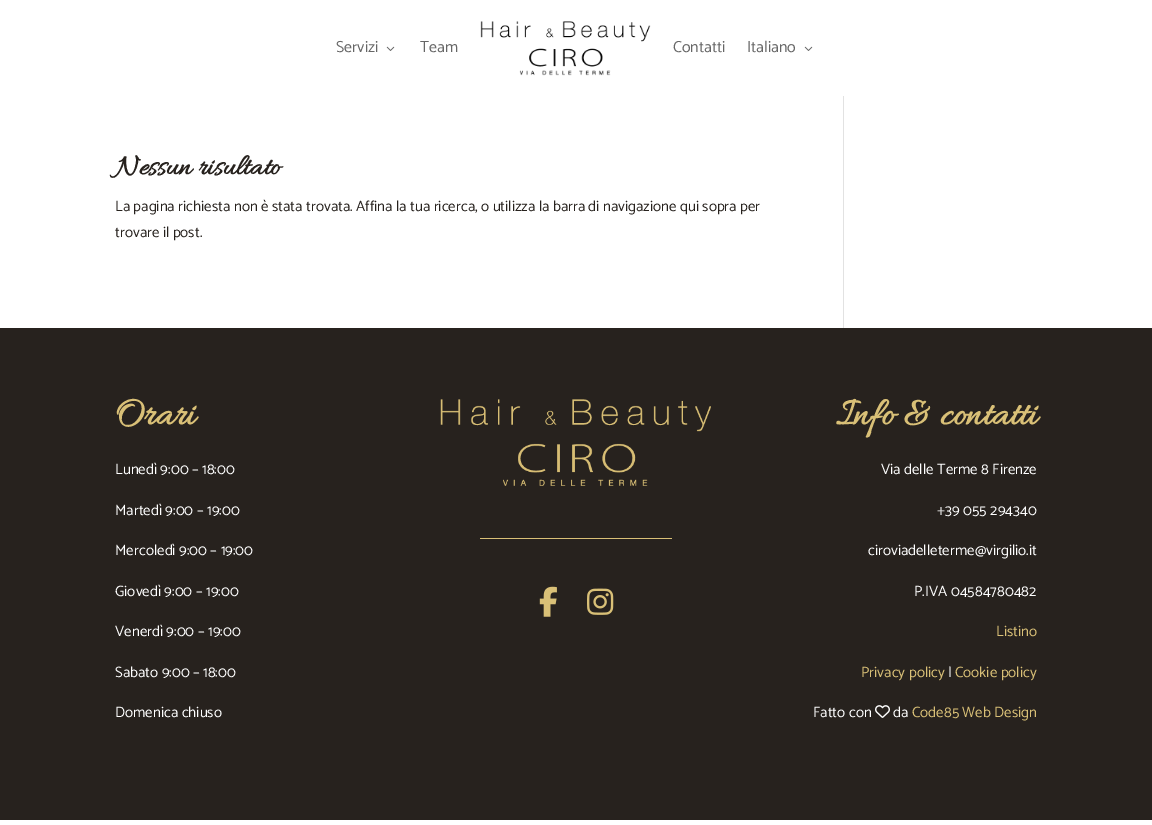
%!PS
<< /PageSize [1152 825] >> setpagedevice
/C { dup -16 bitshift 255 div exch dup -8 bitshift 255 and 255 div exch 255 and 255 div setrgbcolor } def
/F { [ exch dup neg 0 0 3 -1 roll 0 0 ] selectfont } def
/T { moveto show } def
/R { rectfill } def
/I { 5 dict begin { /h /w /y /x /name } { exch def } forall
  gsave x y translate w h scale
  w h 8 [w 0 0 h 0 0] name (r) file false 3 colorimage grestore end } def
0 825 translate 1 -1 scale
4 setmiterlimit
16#FFFFFF C
0 0 1152 825 R
/Catamaran-Regular 16 F
16#666666 C
(Servizi) 336 52 T
(1.rgb) 386 46 9 5 I
(Team) 420 52 T
(2.rgb) 480 21 171 55 I
(Contatti) 673 52 T
(Italiano) 747 52 T
(1.rgb) 804 46 9 5 I
/Allura-Bold 30 F
16#27221E C
(Nessun risultato) 115 174 T
/Catamaran-Regular 15 F
(La pagina richiesta non è stata trovata. Affina la tua ricerca, o utilizza la barra di navigazione qui sopra per) 115 211 T
(trovare il post.) 115 237 T
16#E2E2E2 C
843 96 1 232 R
16#27221E C
0 328 1152 492 R
/Allura-Bold 40 F
16#D9C077 C
(Orari) 115 424 T
/Catamaran-Regular 15 F
16#FFFFFF C
(Lunedì 9:00 – 18:00) 115 474 T
(Martedì 9:00 – 19:00) 115 515 T
(Mercoledì 9:00 – 19:00) 115 555 T
(Giovedì 9:00 – 19:00) 115 596 T
(Venerdì 9:00 – 19:00) 115 636 T
(Sabato 9:00 – 18:00) 115 677 T
(Domenica chiuso) 115 717 T
(3.rgb) 440 399 271 87 I
16#D9C077 C
480 538 192 1 R
(4.rgb) 539 586 18 31 I
(5.rgb) 587 588 27 27 I
/Allura-Bold 40 F
(Info & contatti) 836 424 T
/Catamaran-Regular 15 F
16#FFFFFF C
(Via delle Terme 8 Firenze) 881 474 T
(+39 055 294340) 937 515 T
(ciroviadelleterme@virgilio.it) 868 555 T
(P.IVA 04584780482) 914 596 T
16#D9C077 C
(Listino) 996 636 T
(Privacy policy) 861 677 T
16#FFFFFF C
(|) 948 677 T
16#D9C077 C
(Cookie policy) 955 677 T
16#FFFFFF C
(Fatto con) 813 717 T
(6.rgb) 875 705 15 13 I
(da) 893 717 T
16#D9C077 C
(Code85 Web Design) 912 717 T
showpage
